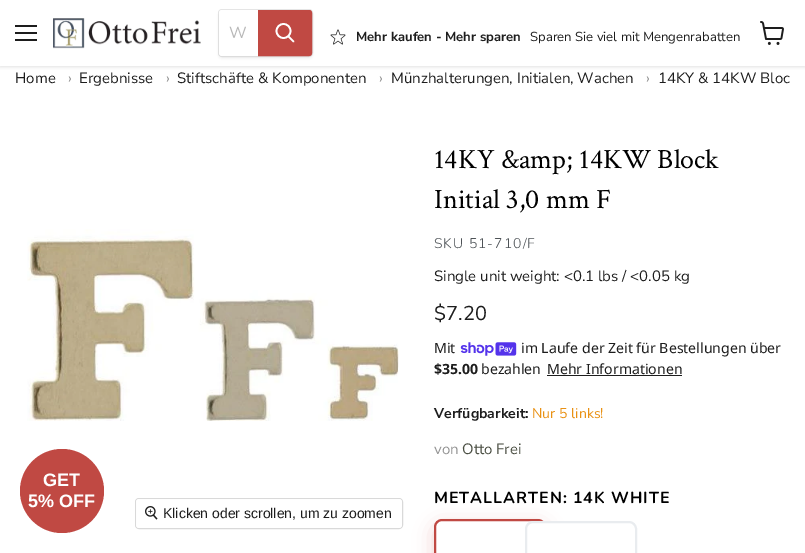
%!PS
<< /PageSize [805 553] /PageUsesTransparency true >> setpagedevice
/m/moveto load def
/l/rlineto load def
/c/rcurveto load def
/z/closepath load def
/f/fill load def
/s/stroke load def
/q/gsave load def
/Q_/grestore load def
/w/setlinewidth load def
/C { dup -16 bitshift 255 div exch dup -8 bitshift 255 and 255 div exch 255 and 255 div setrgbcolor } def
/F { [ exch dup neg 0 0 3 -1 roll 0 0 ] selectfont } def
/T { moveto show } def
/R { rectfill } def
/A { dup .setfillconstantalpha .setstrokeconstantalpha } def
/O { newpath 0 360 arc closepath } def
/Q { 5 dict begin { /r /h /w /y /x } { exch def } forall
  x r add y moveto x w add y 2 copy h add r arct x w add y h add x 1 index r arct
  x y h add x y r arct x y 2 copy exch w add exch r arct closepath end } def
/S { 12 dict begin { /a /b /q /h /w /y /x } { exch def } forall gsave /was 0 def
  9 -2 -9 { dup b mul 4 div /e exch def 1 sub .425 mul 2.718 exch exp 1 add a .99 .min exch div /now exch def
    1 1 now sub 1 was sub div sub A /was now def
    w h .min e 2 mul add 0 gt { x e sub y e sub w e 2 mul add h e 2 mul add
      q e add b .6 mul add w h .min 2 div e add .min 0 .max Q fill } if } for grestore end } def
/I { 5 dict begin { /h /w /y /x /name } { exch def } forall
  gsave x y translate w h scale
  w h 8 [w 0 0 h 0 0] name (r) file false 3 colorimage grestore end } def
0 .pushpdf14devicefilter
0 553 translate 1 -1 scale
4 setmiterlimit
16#FFFFFF C
0 0 805 553 R
q
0 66 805 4 rectclip
16#808080 C
0 1 805 66 0 2 .25 S
Q_
16#1D1D1D C
15 25 22 2 R
15 32 22 2 R
15 39 22 2 R
(1.rgb) 53 18 148 31 I
16#808080 C
218 11 95 48 4 1.5 .11 S
0.2 A
218.5 9.5 94 47 3.5 Q s
1 A
16#FFFFFF C
222 10 m 36 0 l 0 46 l -36 0 l -1.5 0 -3 -1.5 -3 -3 c 0 -40 l 0 -1.5 1.5 -3 3 -3 c z f
/NunitoSans-Regular 16 F
16#B8B8B8 C
(W) 229 38 T
16#C04943 C
258.5 10.5 m 50.5 0 l 1.5 0 2.5 1 2.5 2.5 c 0 40 l 0 1.5 -1 2.5 -2.5 2.5 c -50.5 0 l z q f Q_
s
16#FFFFFF C
1.7 w
1 setlinecap
293.5 41.5 m -5 -5 l s
0 setlinecap
283.5 31 7 O s
(2.rgb) 330 29 16 16 I
/NunitoSans-Bold 13.1 F
16#1D1D1D C
(Mehr kaufen - Mehr sparen) 356 41 T
/NunitoSans-Regular 13.1 F
(Sparen Sie viel mit Mengenrabatten) 530 41 T
(3.rgb) 760 21 24 24 I
/NunitoSans-Regular 15 F
(Home) 15 83 T
16#949494 C
(›) 68 83 T
16#1D1D1D C
(Ergebnisse) 79 83 T
16#949494 C
(›) 166 83 T
16#1D1D1D C
(Stiftschäfte & Komponenten) 177 83 T
16#949494 C
(›) 379 83 T
16#1D1D1D C
(Münzhalterungen, Initialen, Wachen) 391 83 T
16#949494 C
(›) 646 83 T
16#1D1D1D C
(14KY & 14KW Bloc) 658 83 T
/CrimsonText-Regular 28 F
16#000000 C
(14KY &amp; 14KW Block) 434 168 T
(Initial 3,0 mm F) 434 208 T
/Nunito-Light 14 F
16#4D5256 C
434 248 m 1 0 (SKU 51-710/F) ashow
/NunitoSans-Regular 15 F
16#1D1D1D C
(Single unit weight: <0.1 lbs / <0.05 kg) 434 281 T
/NunitoSans-Regular 20 F
($7.20) 434 320 T
/NotoSans-Regular 14.1 F
(Mit) 434 353 T
(4.rgb) 460 342 57 14 I
(im Laufe der Zeit für Bestellungen über) 521 353 T
/NotoSans-Bold 14.1 F
($35.00) 434 374 T
/NotoSans-Regular 14.1 F
(bezahlen) 481 374 T
(Mehr Informationen) 547 374 T
547 375 135 1 R
/NunitoSans-Bold 14.1 F
(Verfügbarkeit:) 434 418 T
/NunitoSans-Regular 14.1 F
16#E99114 C
(Nur 5 links!) 532 418 T
/NunitoSans-Regular 15 F
16#949494 C
(von) 434 454 T
16#494D41 C
(Otto Frei) 462 454 T
/Nunito-Bold 16 F
16#000000 C
434 503 m 1 0 (METALLARTEN: 14K WHITE) ashow
q
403 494 m 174 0 l 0 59 l -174 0 l z 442 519 m 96 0 l 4.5 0 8 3.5 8 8 c 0 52 l 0 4.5 -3.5 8 -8 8 c -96 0 l -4.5 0 -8 -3.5 -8 -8 c 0 -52 l 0 -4.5 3.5 -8 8 -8 c z eoclip newpath
16#C04943 C
434 525 112 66 8 10 .25 S
Q_
16#C04943 C
2 w
435 520 110 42 7 Q s
16#FFFFFF C
527 523 108 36 6 Q f
16#E9ECEF C
526 522 110 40 7 Q s
(5.rgb) 27 229 372 192 I
16#D9D9D9 C
1 w
135.5 498.5 267 30 3.5 Q s
0.9 A
16#FFFFFF C
136 499 266 29 3 Q f
1 A
(6.rgb) 145 506 13 14 I
/LiberationSans-Regular 14 F
16#1D1D1D C
(Klicken oder scrollen, um zu zoomen) 163 518 T
16#C04943 C
62 491 42 O f
/LiberationSans-Bold 18 F
16#FFFFFF C
(GET) 43 486 T
(5% OFF) 28 507 T
.poppdf14devicefilter showpage
